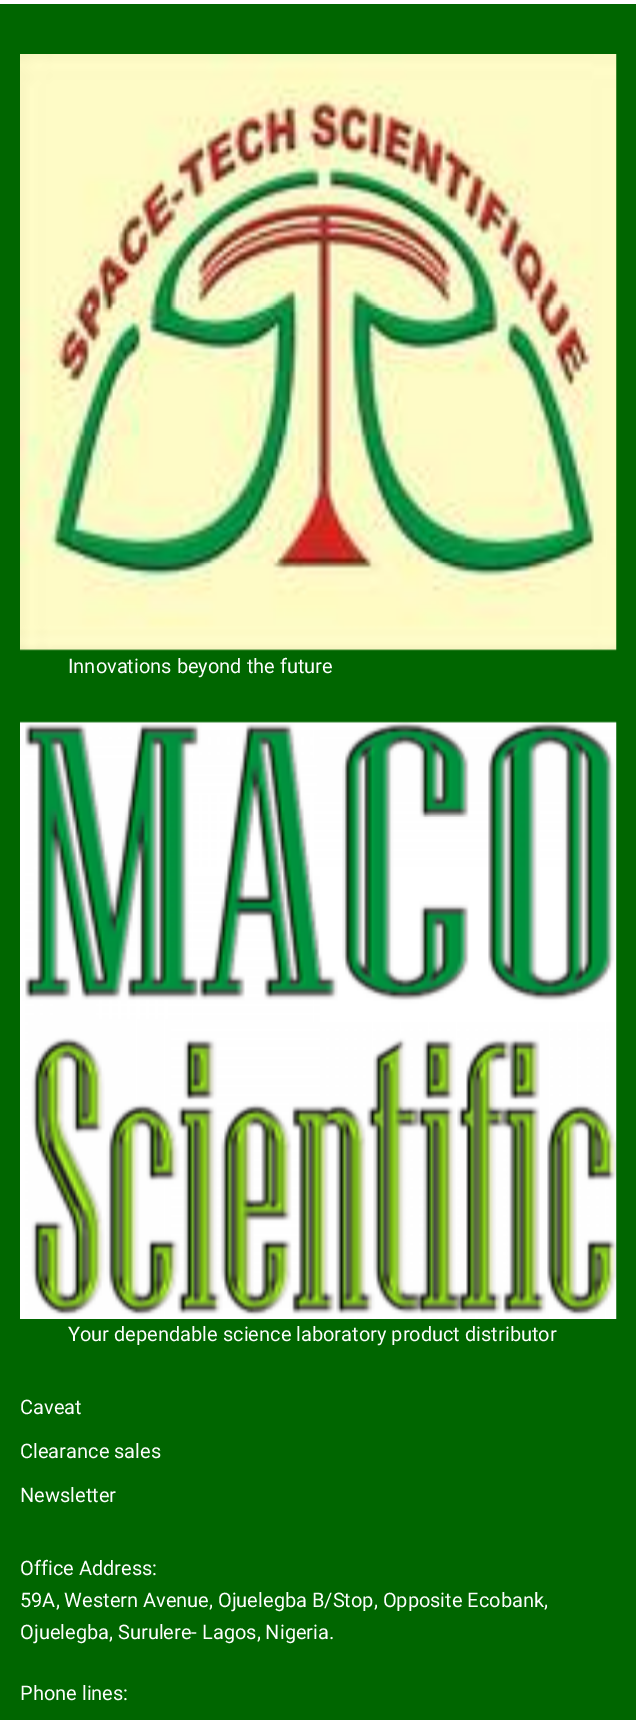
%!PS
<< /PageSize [636 1720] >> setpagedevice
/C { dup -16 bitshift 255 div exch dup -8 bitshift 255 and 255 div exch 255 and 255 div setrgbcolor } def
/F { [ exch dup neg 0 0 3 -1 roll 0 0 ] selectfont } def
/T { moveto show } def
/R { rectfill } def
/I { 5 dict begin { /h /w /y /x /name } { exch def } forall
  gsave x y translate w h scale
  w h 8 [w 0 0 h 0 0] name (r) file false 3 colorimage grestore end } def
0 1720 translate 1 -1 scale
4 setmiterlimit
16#FFFFFF C
0 0 636 1720 R
16#006600 C
0 4 636 1716 R
(1.rgb) 20 54 597 597 I
/Roboto-Regular 20 F
16#FCFDFC C
(Innovations beyond the future) 68 673 T
(2.rgb) 20 721 597 598 I
(Your dependable science laboratory product distributor) 68 1341 T
(Caveat) 20 1414 T
(Clearance sales) 20 1458 T
(Newsletter) 20 1502 T
(Office Address:) 20 1575 T
(59A, Western Avenue, Ojuelegba B/Stop, Opposite Ecobank,) 20 1607 T
(Ojuelegba, Surulere- Lagos, Nigeria.) 20 1639 T
(Phone lines:) 20 1700 T
showpage
